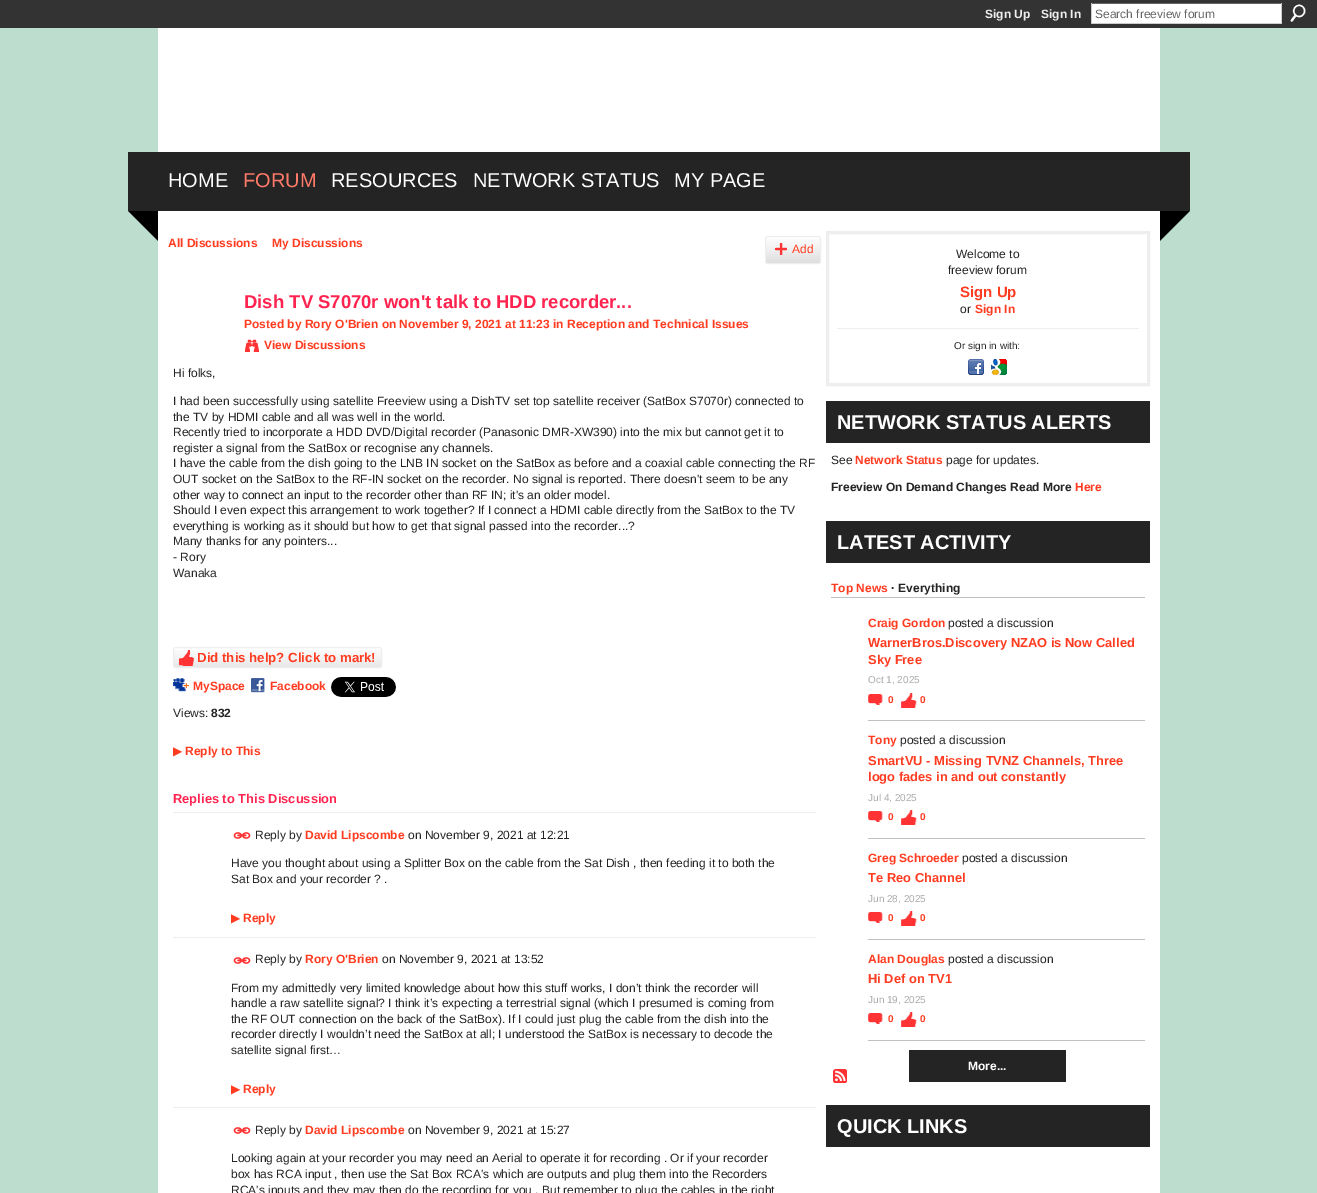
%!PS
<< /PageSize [1317 1193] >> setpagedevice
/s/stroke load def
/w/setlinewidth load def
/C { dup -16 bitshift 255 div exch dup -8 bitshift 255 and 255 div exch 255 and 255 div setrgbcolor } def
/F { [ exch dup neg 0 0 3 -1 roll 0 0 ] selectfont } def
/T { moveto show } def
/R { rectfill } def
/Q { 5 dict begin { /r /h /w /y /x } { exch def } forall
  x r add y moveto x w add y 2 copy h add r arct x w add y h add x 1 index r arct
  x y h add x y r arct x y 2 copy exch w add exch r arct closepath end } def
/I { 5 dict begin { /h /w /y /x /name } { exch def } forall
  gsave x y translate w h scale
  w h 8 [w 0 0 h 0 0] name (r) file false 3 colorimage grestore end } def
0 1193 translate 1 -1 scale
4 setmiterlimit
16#BDDECF C
0 0 1317 1193 R
16#333333 C
0 0 1317 28 R
/LiberationSans-Bold 12 F
16#EEEEEE C
(Sign Up) 985 18 T
(Sign In) 1041 18 T
16#FFFFFF C
1092 4 189 19 R
16#666666 C
1091 3 191 1 R
16#CCCCCC C
1281 3 1 21 R
1091 23 191 1 R
1091 3 1 21 R
/LiberationSans-Regular 12 F
16#666666 C
(Search freeview forum) 1095 18 T
(1.rgb) 1290 4 16 18 I
16#FFFFFF C
158 28 1002 124 R
16#242424 C
128 152 1062 59 R
/LiberationSans-Regular 20 F
16#FFFFFF C
(HOME) 168 187 T
16#FF7A68 C
(FORUM) 243 187 T
16#FFFFFF C
(RESOURCES) 331 187 T
(NETWORK STATUS) 473 187 T
(MY PAGE) 674 187 T
(2.rgb) 128 211 1062 30 I
158 211 1002 982 R
/LiberationSans-Bold 12 F
16#FF3B20 C
(All Discussions) 168 247 T
(My Discussions) 272 247 T
(3.rgb) 765 239 56 25 I
16#EEEEEE C
765.5 236.5 55 27 2.5 Q s
(4.rgb) 775 243 12 12 I
/LiberationSans-Regular 12 F
16#FF3B20 C
(Add) 792 253 T
/LiberationSans-Bold 18.5 F
16#FF2450 C
(Dish TV S7070r won't talk to HDD recorder...) 244 308 T
/LiberationSans-Bold 12 F
16#FF3B20 C
(Posted by Rory O'Brien on November 9, 2021 at 11:23 in Reception and Technical Issues) 244 328 T
(5.rgb) 245 339 14 13 I
(View Discussions) 264 349 T
/LiberationSans-Regular 12 F
16#242424 C
(Hi folks,) 173 377 T
(I had been successfully using satellite Freeview using a DishTV set top satellite receiver \(SatBox S7070r\) connected to) 173 405 T
(the TV by HDMI cable and all was well in the world.) 173 421 T
(Recently tried to incorporate a HDD DVD/Digital recorder \(Panasonic DMR-XW390\) into the mix but cannot get it to) 173 436 T
(register a signal from the SatBox or recognise any channels.) 173 452 T
(I have the cable from the dish going to the LNB IN socket on the SatBox as before and a coaxial cable connecting the RF) 173 467 T
(OUT socket on the SatBox to the RF-IN socket on the recorder. No signal is reported. There doesn't seem to be any) 173 483 T
(other way to connect an input to the recorder other than RF IN; it's an older model.) 173 499 T
(Should I even expect this arrangement to work together? If I connect a HDMI cable directly from the SatBox to the TV) 173 514 T
(everything is working as it should but how to get that signal passed into the recorder...?) 173 530 T
(Many thanks for any pointers...) 173 545 T
(- Rory) 173 561 T
(Wanaka) 173 577 T
(6.rgb) 173 650 209 18 I
16#EEEEEE C
173.5 647.5 208 20 2.5 Q s
(7.rgb) 179 650 15 16 I
/LiberationSans-Bold 13.25 F
16#FF3B20 C
(Did this help? Click to mark!) 197 662 T
(8.rgb) 173 678 16 14 I
/LiberationSans-Bold 12 F
(MySpace) 193 690 T
(9.rgb) 251 678 14 15 I
(Facebook) 270 690 T
(10.rgb) 331 677 65 20 I
/LiberationSans-Regular 12 F
16#242424 C
(Views:) 173 717 T
/LiberationSans-Bold 12 F
(832) 211 717 T
/DejaVuSans-Regular 12 F
16#FF3B20 C
(▶) 173 755 T
/LiberationSans-Bold 12 F
(Reply to This) 185 755 T
/LiberationSans-Bold 12.9 F
16#FF2450 C
(Replies to This Discussion) 173 803 T
16#EEEEEE C
173 812 643 1 R
(11.rgb) 233 832 18 7 I
/LiberationSans-Regular 12 F
16#242424 C
(Reply by) 255 839 T
/LiberationSans-Bold 12 F
16#FF3B20 C
(David Lipscombe) 305 839 T
/LiberationSans-Regular 12 F
16#242424 C
(on November 9, 2021 at 12:21) 408 839 T
(Have you thought about using a Splitter Box on the cable from the Sat Dish , then feeding it to both the) 231 867 T
(Sat Box and your recorder ? .) 231 883 T
/DejaVuSans-Regular 12 F
16#FF3B20 C
(▶) 231 922 T
/LiberationSans-Bold 12 F
(Reply) 243 922 T
16#EEEEEE C
173 937 643 1 R
(11.rgb) 233 957 18 7 I
/LiberationSans-Regular 12 F
16#242424 C
(Reply by) 255 963 T
/LiberationSans-Bold 12 F
16#FF3B20 C
(Rory O'Brien) 305 963 T
/LiberationSans-Regular 12 F
16#242424 C
(on November 9, 2021 at 13:52) 382 963 T
(From my admittedly very limited knowledge about how this stuff works, I don’t think the recorder will) 231 992 T
(handle a raw satellite signal? I think it’s expecting a terrestrial signal \(which I presumed is coming from) 231 1007 T
(the RF OUT connection on the back of the SatBox\). If I could just plug the cable from the dish into the) 231 1023 T
(recorder directly I wouldn’t need the SatBox at all; I understood the SatBox is necessary to decode the) 231 1038 T
(satellite signal first…) 231 1054 T
/DejaVuSans-Regular 12 F
16#FF3B20 C
(▶) 231 1093 T
/LiberationSans-Bold 12 F
(Reply) 243 1093 T
16#EEEEEE C
173 1107 643 1 R
(11.rgb) 233 1127 18 7 I
/LiberationSans-Regular 12 F
16#242424 C
(Reply by) 255 1134 T
/LiberationSans-Bold 12 F
16#FF3B20 C
(David Lipscombe) 305 1134 T
/LiberationSans-Regular 12 F
16#242424 C
(on November 9, 2021 at 15:27) 408 1134 T
(Looking again at your recorder you may need an Aerial to operate it for recording . Or if your recorder) 231 1162 T
(box has RCA input , then use the Sat Box RCA's which are outputs and plug them into the Recorders) 231 1178 T
(RCA's inputs and they may then do the recording for you . But remember to plug the cables in the right) 231 1194 T
16#EEEEEE C
3 w
827.5 232.5 321 152 rectstroke
16#242424 C
(Welcome to) 956 258 T
(freeview forum) 948 274 T
/LiberationSans-Bold 15 F
16#FF3B20 C
(Sign Up) 960 297 T
/LiberationSans-Regular 12 F
16#242424 C
(or) 960 313 T
/LiberationSans-Bold 12 F
16#FF3B20 C
(Sign In) 975 313 T
16#EEEEEE C
837 328 302 1 R
/LiberationSans-Regular 10 F
16#242424 C
(Or sign in with:) 954 349 T
(12.rgb) 968 359 16 16 I
(13.rgb) 991 359 16 16 I
826 401 324 42 R
/LiberationSans-Bold 20 F
16#FFFFFF C
(NETWORK STATUS ALERTS) 837 429 T
/LiberationSans-Regular 12 F
16#242424 C
(See) 831 464 T
/LiberationSans-Bold 12 F
16#FF3B20 C
(Network Status) 855 464 T
/LiberationSans-Regular 12 F
16#242424 C
(page for updates.) 946 464 T
/LiberationSans-Bold 12 F
(Freeview On Demand Changes Read More) 831 491 T
16#FF3B20 C
(Here) 1075 491 T
16#242424 C
826 521 324 42 R
/LiberationSans-Bold 20 F
16#FFFFFF C
(LATEST ACTIVITY) 837 549 T
16#C0C0C0 C
831 597 314 1 R
/LiberationSans-Bold 12 F
16#FF3B20 C
(Top News) 831 592 T
16#242424 C
(· Everything) 891 592 T
16#C0C0C0 C
868 720 277 1 R
16#FF3B20 C
(Craig Gordon) 868 627 T
/LiberationSans-Regular 12 F
16#242424 C
(posted a discussion) 948 627 T
/LiberationSans-Bold 12.9 F
16#FF3B20 C
(WarnerBros.Discovery NZAO is Now Called) 868 647 T
(Sky Free) 868 664 T
/LiberationSans-Regular 10 F
16#AAAAAA C
(Oct 1, 2025) 868 683 T
(14.rgb) 868 694 15 11 I
/LiberationSans-Bold 10 F
16#FF3B20 C
(0) 888 703 T
(15.rgb) 901 693 16 15 I
(0) 920 703 T
16#C0C0C0 C
868 838 277 1 R
/LiberationSans-Bold 12 F
16#FF3B20 C
(Tony) 868 744 T
/LiberationSans-Regular 12 F
16#242424 C
(posted a discussion) 900 744 T
/LiberationSans-Bold 12.9 F
16#FF3B20 C
(SmartVU - Missing TVNZ Channels, Three) 868 765 T
(logo fades in and out constantly) 868 781 T
/LiberationSans-Regular 10 F
16#AAAAAA C
(Jul 4, 2025) 868 801 T
(14.rgb) 868 811 15 11 I
/LiberationSans-Bold 10 F
16#FF3B20 C
(0) 888 820 T
(15.rgb) 901 810 16 15 I
(0) 920 820 T
16#C0C0C0 C
868 939 277 1 R
/LiberationSans-Bold 12 F
16#FF3B20 C
(Greg Schroeder) 868 862 T
/LiberationSans-Regular 12 F
16#242424 C
(posted a discussion) 962 862 T
/LiberationSans-Bold 12.9 F
16#FF3B20 C
(Te Reo Channel) 868 882 T
/LiberationSans-Regular 10 F
16#AAAAAA C
(Jun 28, 2025) 868 902 T
(14.rgb) 868 912 15 11 I
/LiberationSans-Bold 10 F
16#FF3B20 C
(0) 888 921 T
(15.rgb) 901 911 16 15 I
(0) 920 921 T
16#C0C0C0 C
868 1040 277 1 R
/LiberationSans-Bold 12 F
16#FF3B20 C
(Alan Douglas) 868 963 T
/LiberationSans-Regular 12 F
16#242424 C
(posted a discussion) 948 963 T
/LiberationSans-Bold 12.9 F
16#FF3B20 C
(Hi Def on TV1) 868 983 T
/LiberationSans-Regular 10 F
16#AAAAAA C
(Jun 19, 2025) 868 1003 T
(14.rgb) 868 1013 15 11 I
/LiberationSans-Bold 10 F
16#FF3B20 C
(0) 888 1022 T
(15.rgb) 901 1012 16 15 I
(0) 920 1022 T
16#242424 C
909 1050 157 32 R
/LiberationSans-Bold 12 F
16#FFFFFF C
(More...) 968 1070 T
(16.rgb) 833 1069 14 14 I
16#242424 C
826 1105 324 42 R
/LiberationSans-Bold 20 F
16#FFFFFF C
(QUICK LINKS) 837 1133 T
showpage
